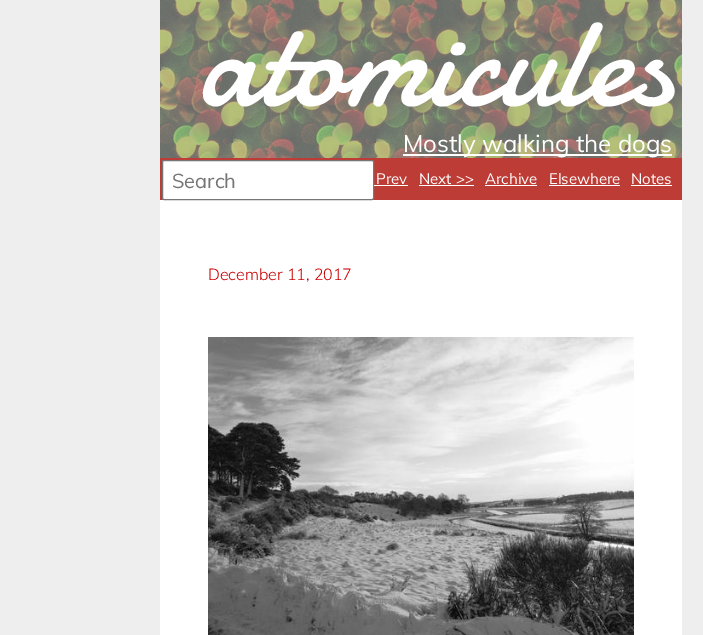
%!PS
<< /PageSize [703 635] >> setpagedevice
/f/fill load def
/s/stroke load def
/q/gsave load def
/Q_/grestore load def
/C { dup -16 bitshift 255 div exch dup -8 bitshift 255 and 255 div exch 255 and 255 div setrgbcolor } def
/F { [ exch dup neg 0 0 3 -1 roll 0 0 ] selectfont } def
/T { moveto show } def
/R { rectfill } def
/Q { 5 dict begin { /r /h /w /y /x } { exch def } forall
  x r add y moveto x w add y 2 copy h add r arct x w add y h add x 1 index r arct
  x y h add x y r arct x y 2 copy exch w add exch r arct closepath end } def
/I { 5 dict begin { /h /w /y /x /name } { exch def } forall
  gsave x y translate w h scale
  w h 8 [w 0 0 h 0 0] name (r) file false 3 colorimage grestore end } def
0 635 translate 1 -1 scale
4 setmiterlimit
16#EEEEEE C
0 0 703 635 R
16#FFFFFF C
160 200 522 435 R
(1.rgb) 160 0 522 158 I
/Damion-Regular 128 F
(atomicules) 199 105 T
403 154 269 2 R
/Muli-Regular 24 F
(Mostly walking the dogs) 403 152 T
16#BD3C36 C
160 158 522 42 R
16#FFFFFF C
162.5 160.5 211 39 1.5 Q q f Q_
16#767676 C
s
/Muli-Regular 20 F
16#757575 C
(Search) 172 188 T
/Muli-Regular 15 F
16#FFFFFF C
(Prev) 376 184 T
374 185 34 1 R
(Next >>) 419 184 T
419 185 55 1 R
(Archive) 485 184 T
485 185 52 1 R
(Elsewhere) 549 184 T
549 185 71 1 R
(Notes) 631 184 T
631 185 41 1 R
/Muli-Light 16 F
16#CC0000 C
(December 11, 2017) 208 280 T
(2.rgb) 208 337 426 298 I
showpage
